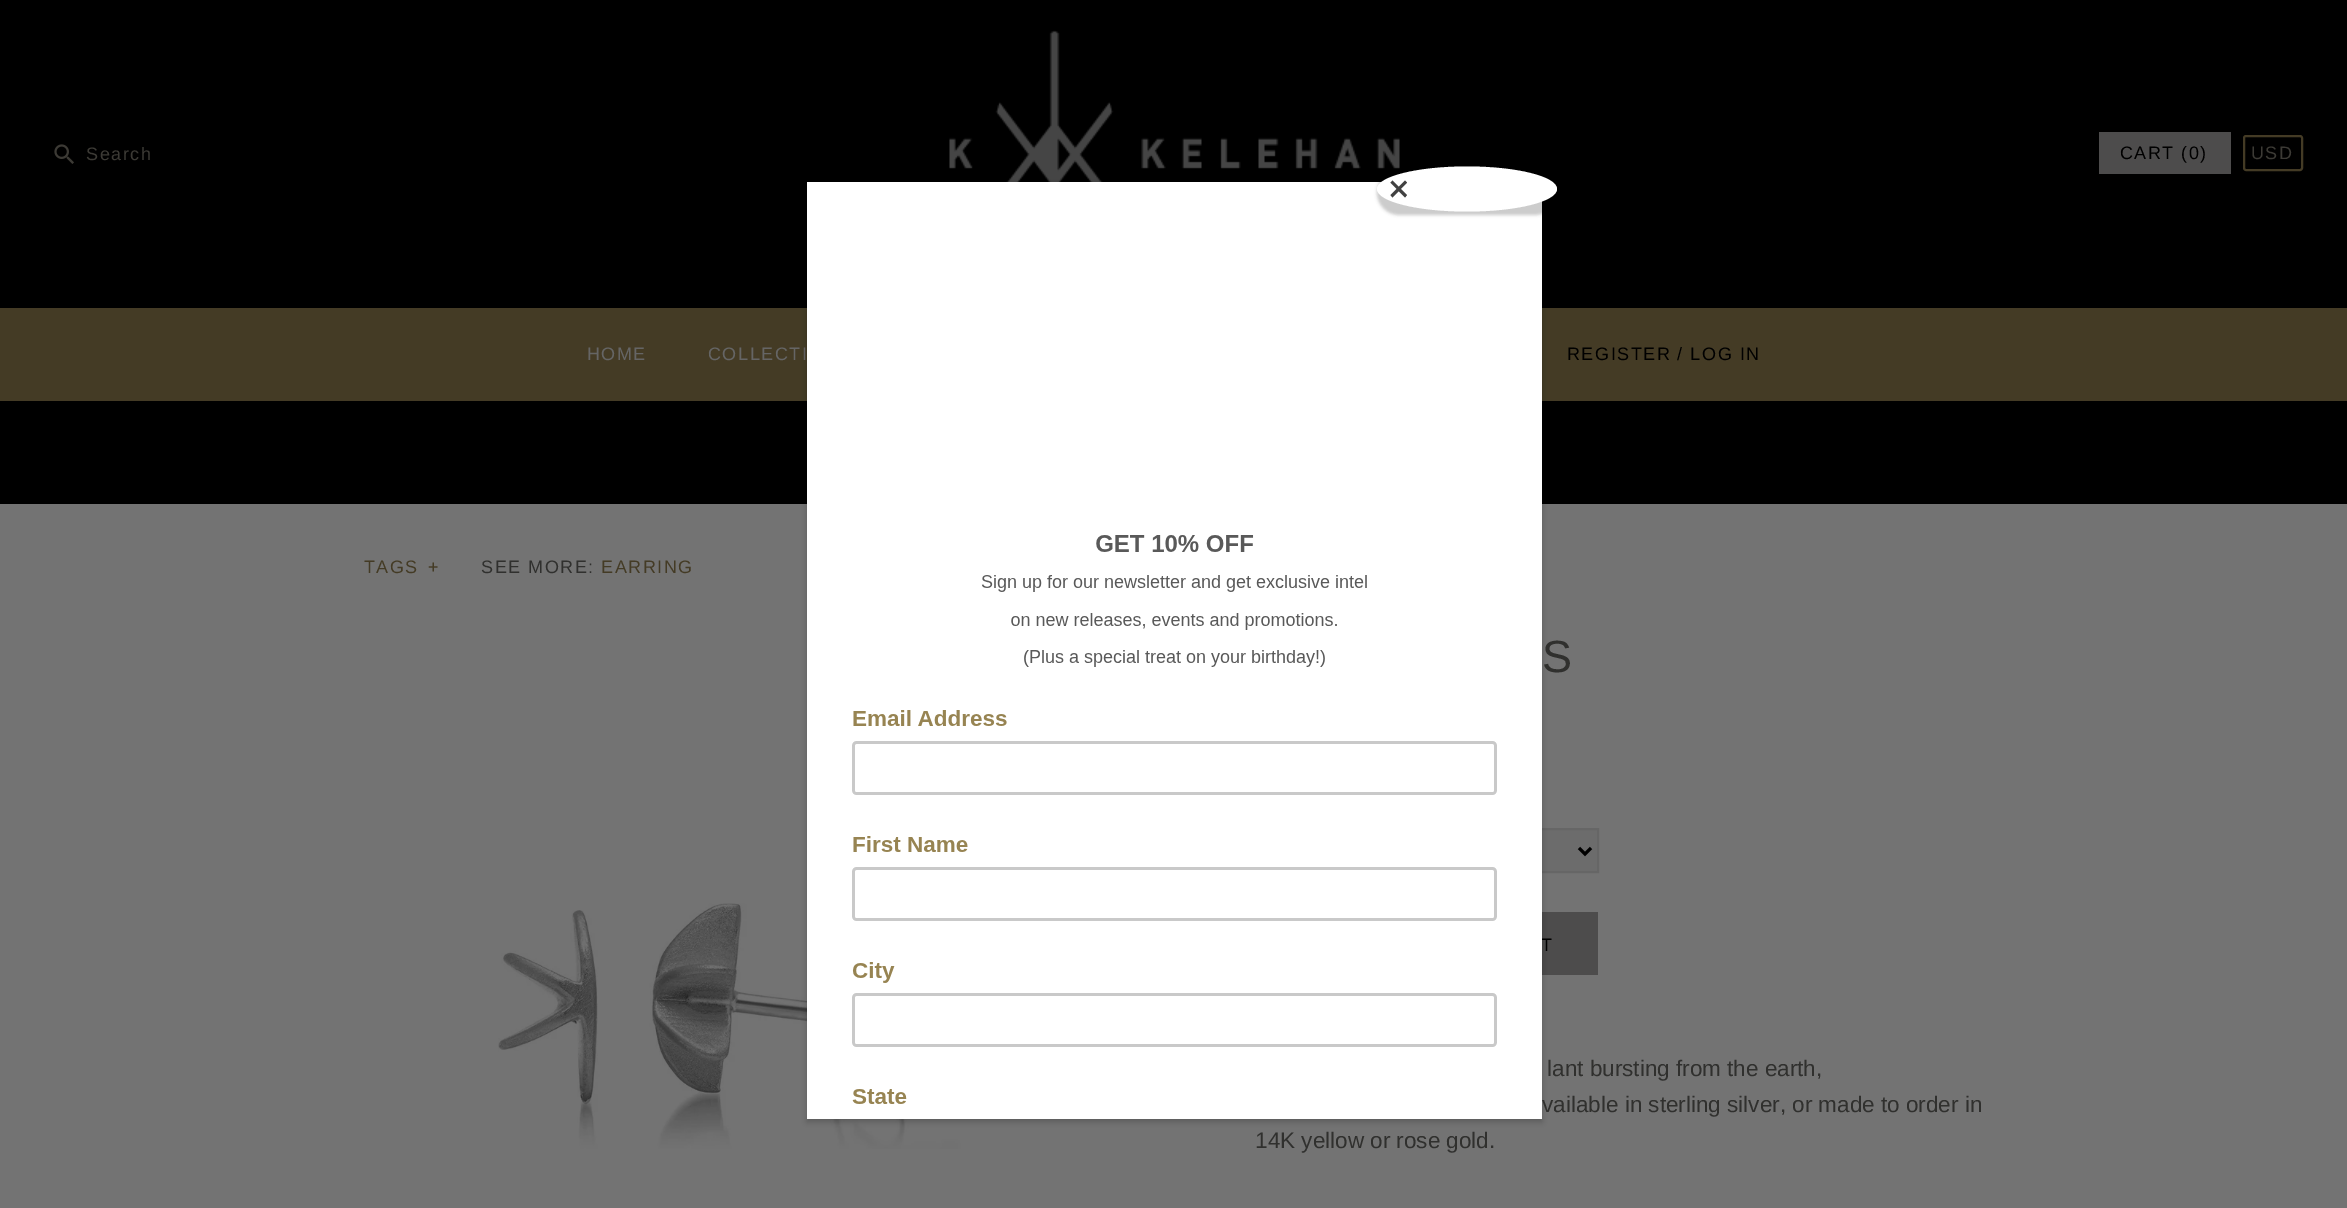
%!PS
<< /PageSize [2347 1208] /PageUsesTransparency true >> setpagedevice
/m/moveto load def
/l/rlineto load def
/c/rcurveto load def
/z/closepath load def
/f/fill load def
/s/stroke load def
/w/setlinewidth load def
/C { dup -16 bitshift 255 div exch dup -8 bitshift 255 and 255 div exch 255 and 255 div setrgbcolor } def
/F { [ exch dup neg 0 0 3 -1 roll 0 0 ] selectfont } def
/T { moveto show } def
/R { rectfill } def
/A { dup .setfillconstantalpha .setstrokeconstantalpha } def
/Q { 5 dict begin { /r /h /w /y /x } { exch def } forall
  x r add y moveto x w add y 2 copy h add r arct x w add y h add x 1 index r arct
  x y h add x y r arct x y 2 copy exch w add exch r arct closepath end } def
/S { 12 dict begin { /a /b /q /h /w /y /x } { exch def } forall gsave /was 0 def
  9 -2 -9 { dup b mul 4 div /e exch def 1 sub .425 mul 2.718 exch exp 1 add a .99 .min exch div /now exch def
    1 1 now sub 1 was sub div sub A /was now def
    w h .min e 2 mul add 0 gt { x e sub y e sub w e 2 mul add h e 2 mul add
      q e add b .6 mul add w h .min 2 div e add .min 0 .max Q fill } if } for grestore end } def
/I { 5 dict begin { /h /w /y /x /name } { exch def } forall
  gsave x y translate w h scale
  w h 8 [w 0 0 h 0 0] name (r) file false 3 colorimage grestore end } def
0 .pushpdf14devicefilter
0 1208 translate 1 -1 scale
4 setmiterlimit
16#737373 C
0 0 2347 1208 R
16#000000 C
0 0 2347 308 R
(1.rgb) 949 30 451 152 I
(2.rgb) 54 144 20 20 I
/LiberationSans-Regular 18 F
16#3C3A35 C
86 160 m 1.5 0 (Search) ashow
16#4D4C4C C
2099 132 132 42 R
16#000000 C
2120 159 m 1.5 0 (CART \(0\)) ashow
16#443B25 C
2 w
2244 136 58 34 2 Q s
16#3C3A35 C
2251 159 m 1.5 0 (USD) ashow
16#443B25 C
0 308 2347 93 R
16#656565 C
587 360 m 1.5 0 (HOME) ashow
708 360 m 1.5 0 (COLLECTI) ashow
16#000000 C
1567 360 m 1.5 0 (REGISTER / LOG IN) ashow
0 401 2347 103 R
(4.rgb) 498 903 464 246 I
16#6C6C6C C
1542 830 55 41 R
16#666666 C
1392 829 206 43 rectstroke
16#4D4C4C C
1542 912 56 63 R
16#000000 C
807 185 735 937 0 3 .2 S
1541 951 m 1.5 0 (T) ashow
/LiberationSans-Regular 22.5 F
16#30302E C
(vailable in sterling silver, or made to order in) 1542 1112 T
(3.rgb) 807 182 735 937 I
16#000000 C
1377 170 180 45 22.5 1.5 .2 S
16#FFFFFF C
1467 166.5 m 49.5 0 90 10 90 22.5 c 0 12.5 -40.5 22.5 -90 22.5 c -49.5 0 -90 -10 -90 -22.5 c 0 -12.5 40.5 -22.5 90 -22.5 c z f
16#414141 C
1405 180.5 m 2 2 l -14.5 15 l -2 -2.5 l z f
1390.5 182.5 m 2 -2 l 14.5 14.5 l -2 2.5 l z f
/LiberationSans-Regular 18 F
16#443B25 C
364 573 m 1.5 0 (TAGS) ashow
428 573 m 1.5 0 (+) ashow
16#30302E C
481 573 m 1.5 0 (SEE MORE:) ashow
16#443B25 C
601 573 m 1.5 0 (EARRING) ashow
/LiberationSans-Regular 45 F
16#30302E C
(S) 1542 672 T
16#000000 C
3 w
1579 848 m 6 6 l 6 -6 l s
/LiberationSans-Regular 22.5 F
16#30302E C
(lant bursting from the earth,) 1547 1076 T
(14K yellow or rose gold.) 1255 1148 T
.poppdf14devicefilter showpage
